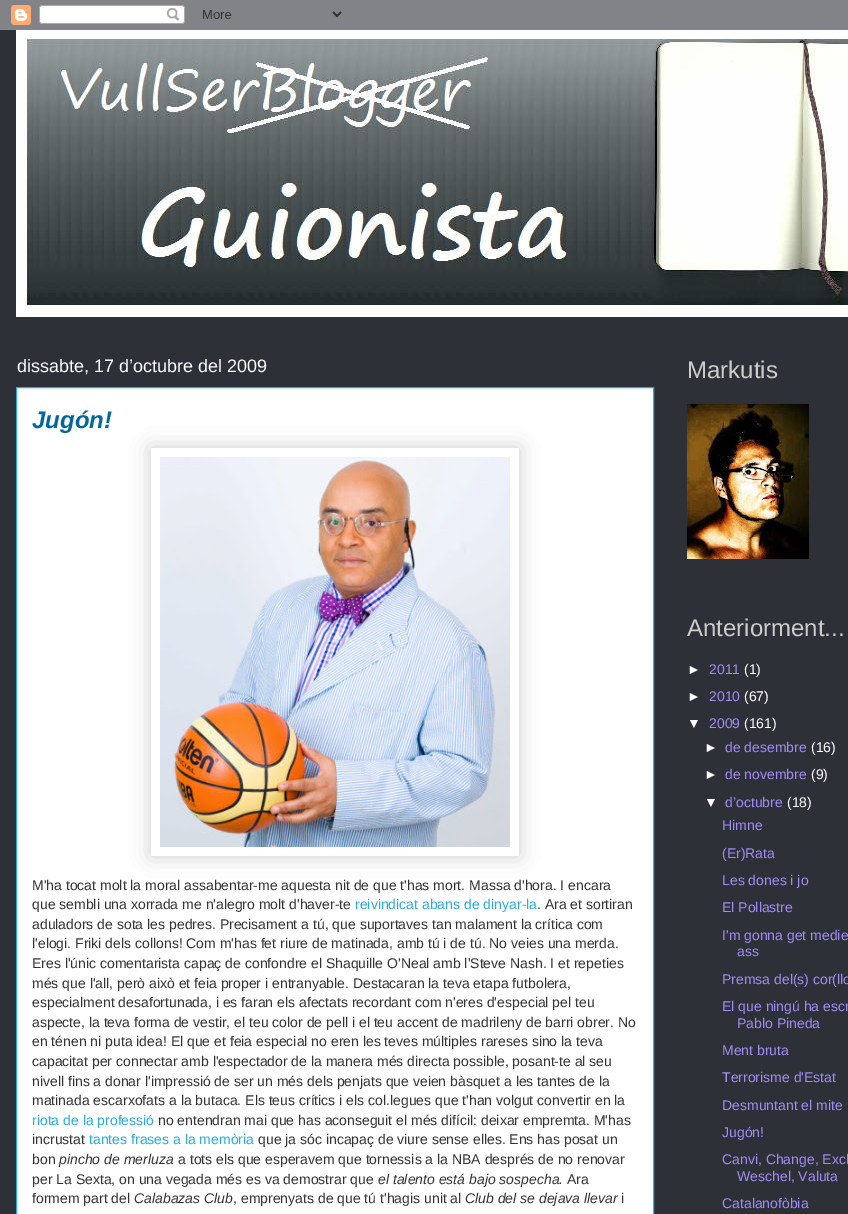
%!PS
<< /PageSize [848 1214] /PageUsesTransparency true >> setpagedevice
/m/moveto load def
/l/rlineto load def
/z/closepath load def
/f/fill load def
/s/stroke load def
/q/gsave load def
/Q_/grestore load def
/C { dup -16 bitshift 255 div exch dup -8 bitshift 255 and 255 div exch 255 and 255 div setrgbcolor } def
/F { [ exch dup neg 0 0 3 -1 roll 0 0 ] selectfont } def
/T { moveto show } def
/R { rectfill } def
/A { dup .setfillconstantalpha .setstrokeconstantalpha } def
/Q { 5 dict begin { /r /h /w /y /x } { exch def } forall
  x r add y moveto x w add y 2 copy h add r arct x w add y h add x 1 index r arct
  x y h add x y r arct x y 2 copy exch w add exch r arct closepath end } def
/S { 12 dict begin { /a /b /q /h /w /y /x } { exch def } forall gsave /was 0 def
  9 -2 -9 { dup b mul 4 div /e exch def 1 sub .425 mul 2.718 exch exp 1 add a .99 .min exch div /now exch def
    1 1 now sub 1 was sub div sub A /was now def
    w h .min e 2 mul add 0 gt { x e sub y e sub w e 2 mul add h e 2 mul add
      q e add b .6 mul add w h .min 2 div e add .min 0 .max Q fill } if } for grestore end } def
/I { 5 dict begin { /h /w /y /x /name } { exch def } forall
  gsave x y translate w h scale
  w h 8 [w 0 0 h 0 0] name (r) file false 3 colorimage grestore end } def
0 .pushpdf14devicefilter
0 1214 translate 1 -1 scale
4 setmiterlimit
16#2D3037 C
0 0 848 1214 R
(1.rgb) 0 0 848 30 I
(2.rgb) 16 30 832 287 I
16#FFFFFF C
16.5 387.5 m 637 0 l 0 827 l -637 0 l z q f Q_
16#29AAE1 C
s
/LiberationSans-Regular 18 F
16#FFFFFF C
(dissabte, 17 d’octubre del 2009) 17 372 T
/LiberationSans-BoldItalic 24 F
16#01689C C
(Jugón!) 32 428 T
q
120 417 m 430 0 l 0 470 l -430 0 l z 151 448 m 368 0 l 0 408 l -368 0 l z eoclip newpath
16#000000 C
151 448 368 408 0 10 .2 S
Q_
(3.rgb) 160 457 350 390 I
/LiberationSans-Regular 14 F
16#333333 C
(M'ha tocat molt la moral assabentar-me aquesta nit de que t'has mort. Massa d'hora. I encara) 32 890 T
(que sembli una xorrada me n'alegro molt d'haver-te) 32 909 T
16#29AAE1 C
(reivindicat abans de dinyar-la) 355 909 T
16#333333 C
(. Ara et sortiran) 537 909 T
(aduladors de sota les pedres. Precisament a tú, que suportaves tan malament la crítica com) 32 929 T
(l'elogi. Friki dels collons! Com m'has fet riure de matinada, amb tú i de tú. No veies una merda.) 32 948 T
(Eres l'únic comentarista capaç de confondre el Shaquille O'Neal amb l'Steve Nash. I et repeties) 32 968 T
(més que l'all, però això et feia proper i entranyable. Destacaran la teva etapa futbolera,) 32 988 T
(especialment desafortunada, i es faran els afectats recordant com n'eres d'especial pel teu) 32 1007 T
(aspecte, la teva forma de vestir, el teu color de pell i el teu accent de madrileny de barri obrer. No) 32 1027 T
(en ténen ni puta idea! El que et feia especial no eren les teves múltiples rareses sino la teva) 32 1046 T
(capacitat per connectar amb l'espectador de la manera més directa possible, posant-te al seu) 32 1066 T
(nivell fins a donar l'impressió de ser un més dels penjats que veien bàsquet a les tantes de la) 32 1086 T
(matinada escarxofats a la butaca. Els teus crítics i els col.legues que t'han volgut convertir en la) 32 1105 T
16#29AAE1 C
(riota de la professió) 32 1125 T
16#333333 C
(no entendran mai que has aconseguit el més difícil: deixar empremta. M'has) 158 1125 T
(incrustat) 32 1144 T
16#29AAE1 C
(tantes frases a la memòria) 89 1144 T
16#333333 C
(que ja sóc incapaç de viure sense elles. Ens has posat un) 258 1144 T
(bon) 32 1164 T
/LiberationSans-Italic 14 F
(pincho de merluza) 59 1164 T
/LiberationSans-Regular 14 F
(a tots els que esperavem que tornessis a la NBA després de no renovar) 178 1164 T
(per La Sexta, on una vegada més es va demostrar que) 32 1184 T
/LiberationSans-Italic 14 F
(el talento está bajo sospecha.) 378 1184 T
/LiberationSans-Regular 14 F
(Ara) 567 1184 T
(formem part del) 32 1203 T
/LiberationSans-Italic 14 F
(Calabazas Club) 134 1203 T
/LiberationSans-Regular 14 F
(, emprenyats de que tú t'hagis unit al) 233 1203 T
/LiberationSans-Italic 14 F
(Club del se dejava llevar) 465 1203 T
/LiberationSans-Regular 14 F
(i) 621 1203 T
/LiberationSans-Regular 24 F
16#CCCCCC C
(Markutis) 687 378 T
(4.rgb) 687 404 122 155 I
(Anteriorment...) 687 636 T
/LiberationSans-Regular 14 F
16#FFFFFF C
(►) 687 674 T
16#A08CF5 C
(2011) 709 674 T
16#FFFFFF C
(\(1\)) 744 674 T
(►) 687 701 T
16#A08CF5 C
(2010) 709 701 T
16#FFFFFF C
(\(67\)) 744 701 T
(▼) 687 728 T
16#A08CF5 C
(2009) 709 728 T
16#FFFFFF C
(\(161\)) 744 728 T
(►) 704 752 T
16#A08CF5 C
(de desembre) 725 752 T
16#FFFFFF C
(\(16\)) 811 752 T
(►) 704 779 T
16#A08CF5 C
(de novembre) 725 779 T
16#FFFFFF C
(\(9\)) 811 779 T
(▼) 704 807 T
16#A08CF5 C
(d’octubre) 725 807 T
16#FFFFFF C
(\(18\)) 787 807 T
16#A08CF5 C
(Himne) 722 830 T
(\(Er\)Rata) 722 858 T
(Les dones i jo) 722 885 T
(El Pollastre) 722 912 T
(I'm gonna get medie) 722 940 T
(ass) 737 956 T
(Premsa del\(s\) cor\(llo) 722 984 T
(El que ningú ha escr) 722 1011 T
(Pablo Pineda) 737 1028 T
(Ment bruta) 722 1055 T
(Terrorisme d'Estat) 722 1082 T
(Desmuntant el mite) 722 1110 T
(Jugón!) 722 1137 T
(Canvi, Change, Exch) 722 1164 T
(Weschel, Valuta) 737 1181 T
(Catalanofòbia) 722 1208 T
.poppdf14devicefilter showpage
